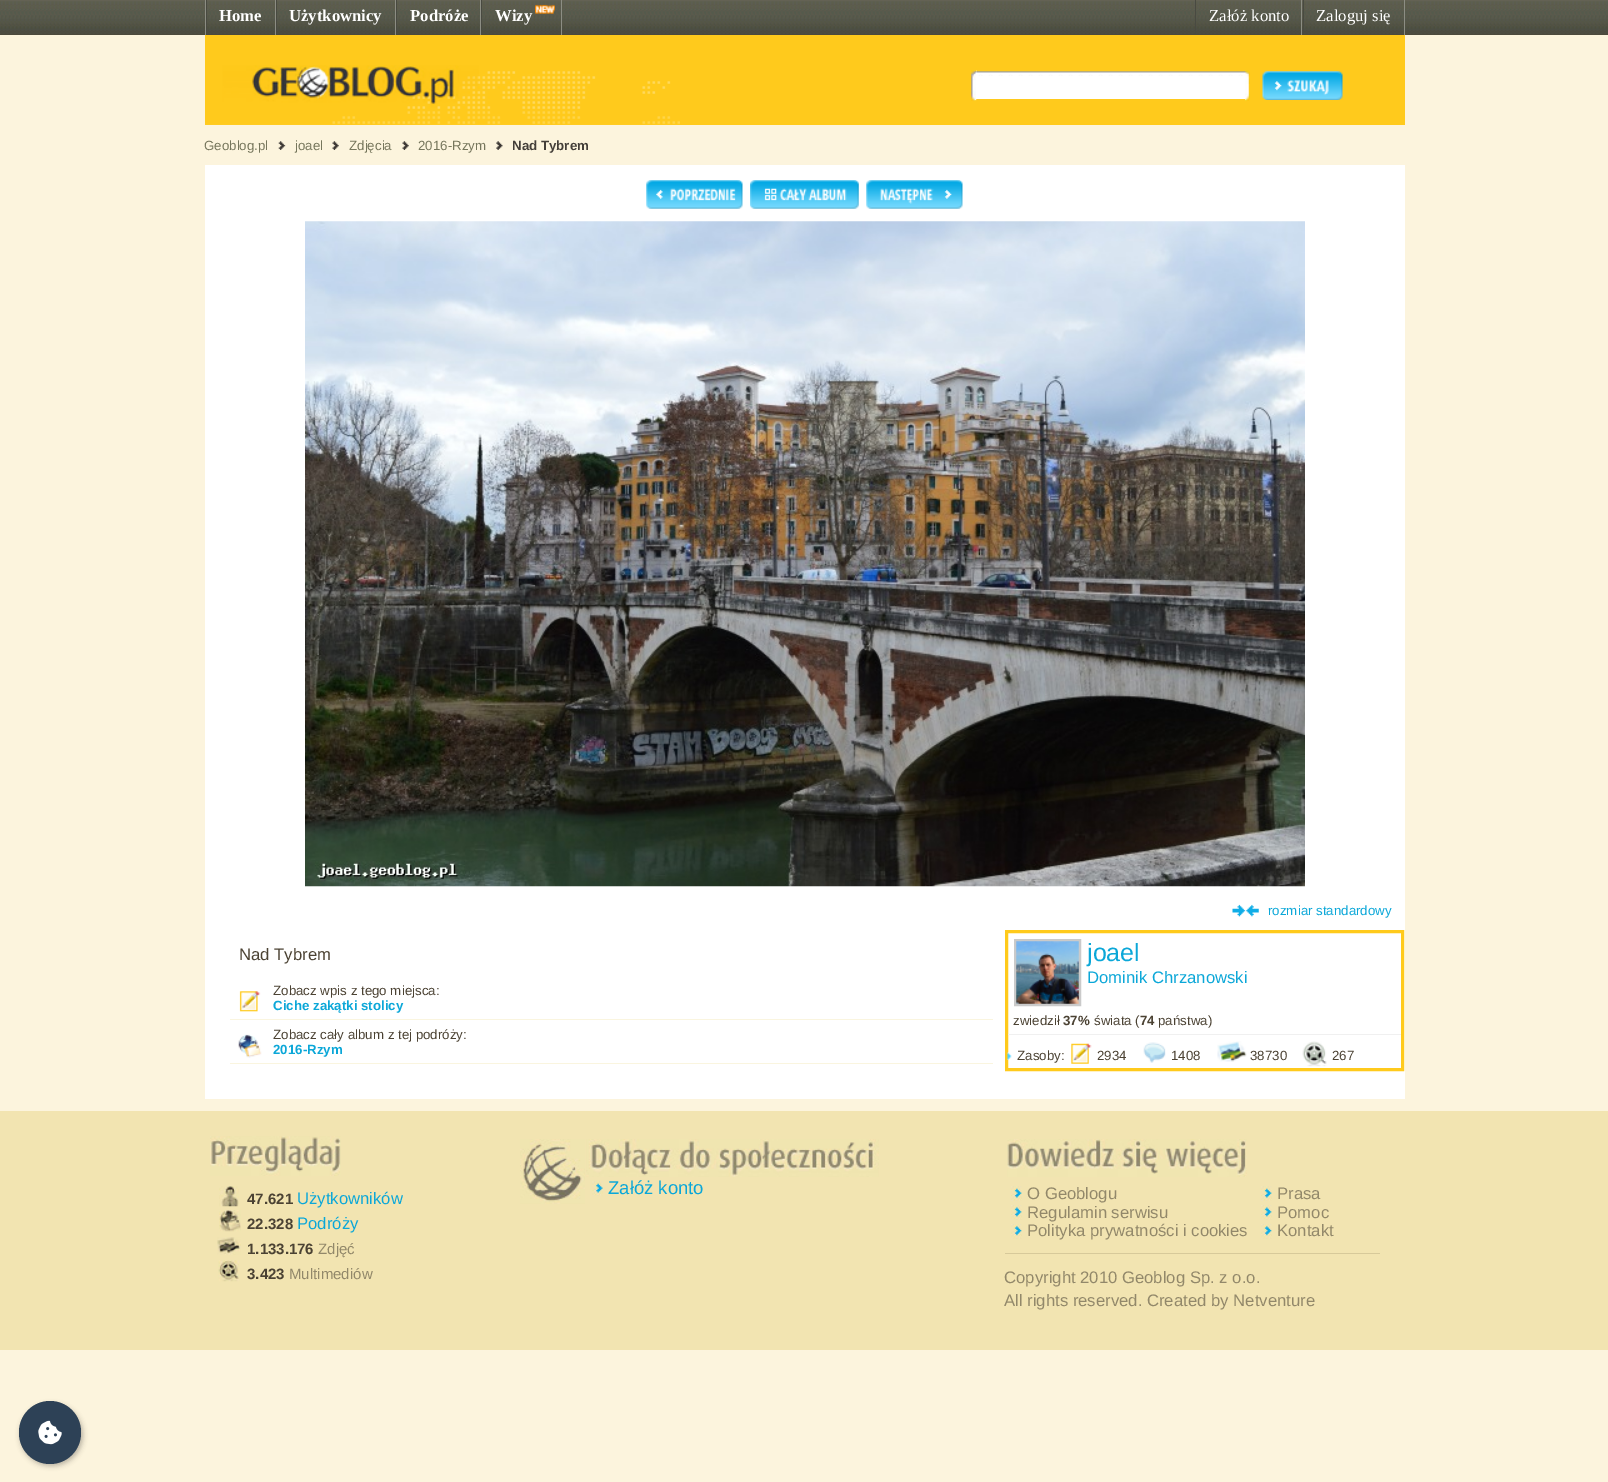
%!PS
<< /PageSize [1608 1482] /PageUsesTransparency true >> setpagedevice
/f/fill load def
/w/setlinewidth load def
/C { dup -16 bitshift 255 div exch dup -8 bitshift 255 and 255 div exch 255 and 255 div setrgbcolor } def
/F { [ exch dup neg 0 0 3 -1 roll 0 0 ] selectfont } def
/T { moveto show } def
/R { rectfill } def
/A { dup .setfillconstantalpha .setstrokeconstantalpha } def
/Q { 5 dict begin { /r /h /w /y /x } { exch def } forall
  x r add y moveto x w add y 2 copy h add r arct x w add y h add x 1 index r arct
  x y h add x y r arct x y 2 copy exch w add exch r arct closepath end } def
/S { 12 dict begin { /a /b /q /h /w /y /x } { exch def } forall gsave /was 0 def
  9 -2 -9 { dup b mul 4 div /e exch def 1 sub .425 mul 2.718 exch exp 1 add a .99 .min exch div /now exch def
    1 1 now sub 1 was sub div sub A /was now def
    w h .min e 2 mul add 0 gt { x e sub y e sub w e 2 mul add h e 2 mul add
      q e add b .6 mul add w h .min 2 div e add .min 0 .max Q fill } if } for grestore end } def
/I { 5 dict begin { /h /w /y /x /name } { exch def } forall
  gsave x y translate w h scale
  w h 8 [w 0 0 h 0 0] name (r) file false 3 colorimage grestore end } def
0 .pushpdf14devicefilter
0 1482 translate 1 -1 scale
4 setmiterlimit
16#FCF4DD C
0 0 1608 1482 R
(1.rgb) 0 0 1608 35 I
16#8C8D83 C
205 0 1 35 R
275 0 1 35 R
16#494A41 C
206 0 1 35 R
/LiberationSerif-Bold 16.7 F
16#FFFFFF C
(Home) 219 21 T
16#8C8D83 C
395 0 1 35 R
16#494A41 C
276 0 1 35 R
16#FFFFFF C
(Użytkownicy) 289 21 T
16#8C8D83 C
480 0 1 35 R
16#494A41 C
396 0 1 35 R
16#FFFFFF C
(Podróże) 410 21 T
16#8C8D83 C
561 0 1 35 R
16#494A41 C
481 0 1 35 R
16#FFFFFF C
(Wizy) 495 21 T
(2.rgb) 535 4 20 10 I
16#8C8D83 C
1301 0 1 35 R
16#494A41 C
1195 0 1 35 R
/LiberationSerif-Regular 16.7 F
16#FFFFFF C
(Załóż konto) 1209 21 T
16#8C8D83 C
1404 0 1 35 R
16#494A41 C
1303 0 1 35 R
16#FFFFFF C
(Zaloguj się) 1316 21 T
16#FFCA1C C
205 35 1200 90 R
(3.rgb) 205 65 475 60 I
(4.rgb) 971 70 6 31 I
16#FFFFFF C
976 70 269 29 R
(5.rgb) 976 70 269 6 I
(6.rgb) 1245 70 5 31 I
(7.rgb) 1262 71 81 29 I
/LiberationSans-Regular 13.3 F
16#76765C C
(Geoblog.pl) 204 150 T
(8.rgb) 278 141 8 9 I
(joael) 295 150 T
(9.rgb) 332 141 7 9 I
(Zdjęcia) 349 150 T
(9.rgb) 402 141 7 9 I
(2016-Rzym) 418 150 T
(10.rgb) 496 141 7 9 I
/LiberationSans-Bold 13.3 F
16#443F39 C
(Nad Tybrem) 512 150 T
16#FFFFFF C
205 165 1200 934 R
(11.rgb) 646 180 97 29 I
(12.rgb) 750 180 109 29 I
(13.rgb) 866 180 97 29 I
(14.rgb) 305 221 1000 666 I
(15.rgb) 1232 904 27 13 I
/LiberationSans-Regular 13.3 F
16#0BA7D8 C
(rozmiar standardowy) 1268 915 T
/LiberationSans-Regular 16.7 F
16#4B4233 C
(Nad Tybrem) 239 960 T
16#FAF5DF C
230 1019 763 1 R
(16.rgb) 239 991 22 21 I
/LiberationSans-Regular 13.3 F
16#4B4233 C
(Zobacz wpis z tego miejsca:) 273 995 T
/LiberationSans-Bold 13.3 F
16#0BA7D8 C
(Ciche zakątki stolicy) 273 1010 T
16#FAF5DF C
230 1063 763 1 R
(17.rgb) 238 1034 24 24 I
/LiberationSans-Regular 13.3 F
16#4B4233 C
(Zobacz cały album z tej podróży:) 273 1039 T
/LiberationSans-Bold 13.3 F
16#0BA7D8 C
(2016-Rzym) 273 1054 T
16#FFCA1C C
3 w
1006.5 931.5 396 138 rectstroke
16#F0F0F0 C
1008 1034 393 1 R
16#CACACA C
1015.5 940.5 64 64 rectstroke
(18.rgb) 1016 941 63 63 I
/LiberationSans-Regular 25 F
16#0BA7D8 C
(joael) 1087 961 T
/LiberationSans-Regular 16.7 F
(Dominik Chrzanowski) 1087 983 T
/LiberationSans-Regular 13.3 F
16#4B4233 C
(zwiedził) 1013 1025 T
/LiberationSans-Bold 13.3 F
(37%) 1063 1025 T
/LiberationSans-Regular 13.3 F
(świata \() 1094 1025 T
/LiberationSans-Bold 13.3 F
(74) 1140 1025 T
/LiberationSans-Regular 13.3 F
(państwa\)) 1158 1025 T
(19.rgb) 1007 1052 5 8 I
(Zasoby:) 1017 1060 T
(20.rgb) 1071 1043 21 21 I
(2934) 1097 1060 T
(21.rgb) 1143 1042 23 21 I
(1408) 1171 1060 T
(22.rgb) 1217 1041 30 21 I
(38730) 1250 1060 T
(23.rgb) 1302 1041 25 26 I
(267) 1332 1060 T
16#F2E4B1 C
0 1111 1608 239 R
(24.rgb) 520 1139 65 65 I
(25.rgb) 586 1139 293 38 I
(26.rgb) 592 1181 11 15 I
/LiberationSans-Regular 18.5 F
16#0BA7D8 C
(Załóż konto) 608 1194 T
(27.rgb) 210 1136 131 40 I
(28.rgb) 219 1186 20 21 I
/LiberationSans-Bold 15 F
16#4B4233 C
(47.621) 247 1204 T
/LiberationSans-Regular 16.7 F
16#0BA7D8 C
(Użytkowników) 297 1204 T
(29.rgb) 219 1210 22 22 I
/LiberationSans-Bold 15 F
16#4B4233 C
(22.328) 247 1229 T
/LiberationSans-Regular 16.7 F
16#0BA7D8 C
(Podróży) 297 1229 T
(30.rgb) 217 1237 24 18 I
/LiberationSans-Bold 15 F
16#4B4233 C
(1.133.176) 247 1254 T
/LiberationSans-Regular 15 F
16#92886A C
(Zdjęć) 318 1254 T
(31.rgb) 218 1260 21 22 I
/LiberationSans-Bold 15 F
16#4B4233 C
(3.423) 247 1279 T
/LiberationSans-Regular 15 F
16#92886A C
(Multimediów) 289 1279 T
(32.rgb) 1007 1139 240 38 I
16#D7C99A C
1005 1253 375 1 R
(33.rgb) 1011 1186 11 15 I
/LiberationSans-Regular 16.7 F
16#92886A C
(O Geoblogu) 1027 1199 T
(34.rgb) 1011 1205 11 15 I
(Regulamin serwisu) 1027 1218 T
(35.rgb) 1011 1224 11 15 I
(Polityka prywatności i cookies) 1027 1236 T
(36.rgb) 1261 1186 11 15 I
(Prasa) 1277 1199 T
(37.rgb) 1261 1205 11 15 I
(Pomoc) 1277 1218 T
(38.rgb) 1261 1224 11 15 I
(Kontakt) 1277 1236 T
(Copyright 2010 Geoblog Sp. z o.o.) 1004 1283 T
(All rights reserved. Created by Netventure) 1004 1306 T
16#000000 C
20 1404 63 62 31 2.5 .25 S
16#2D4156 C
19 1401 62 63 31 Q f
(39.rgb) 38 1420 24 25 I
.poppdf14devicefilter showpage
